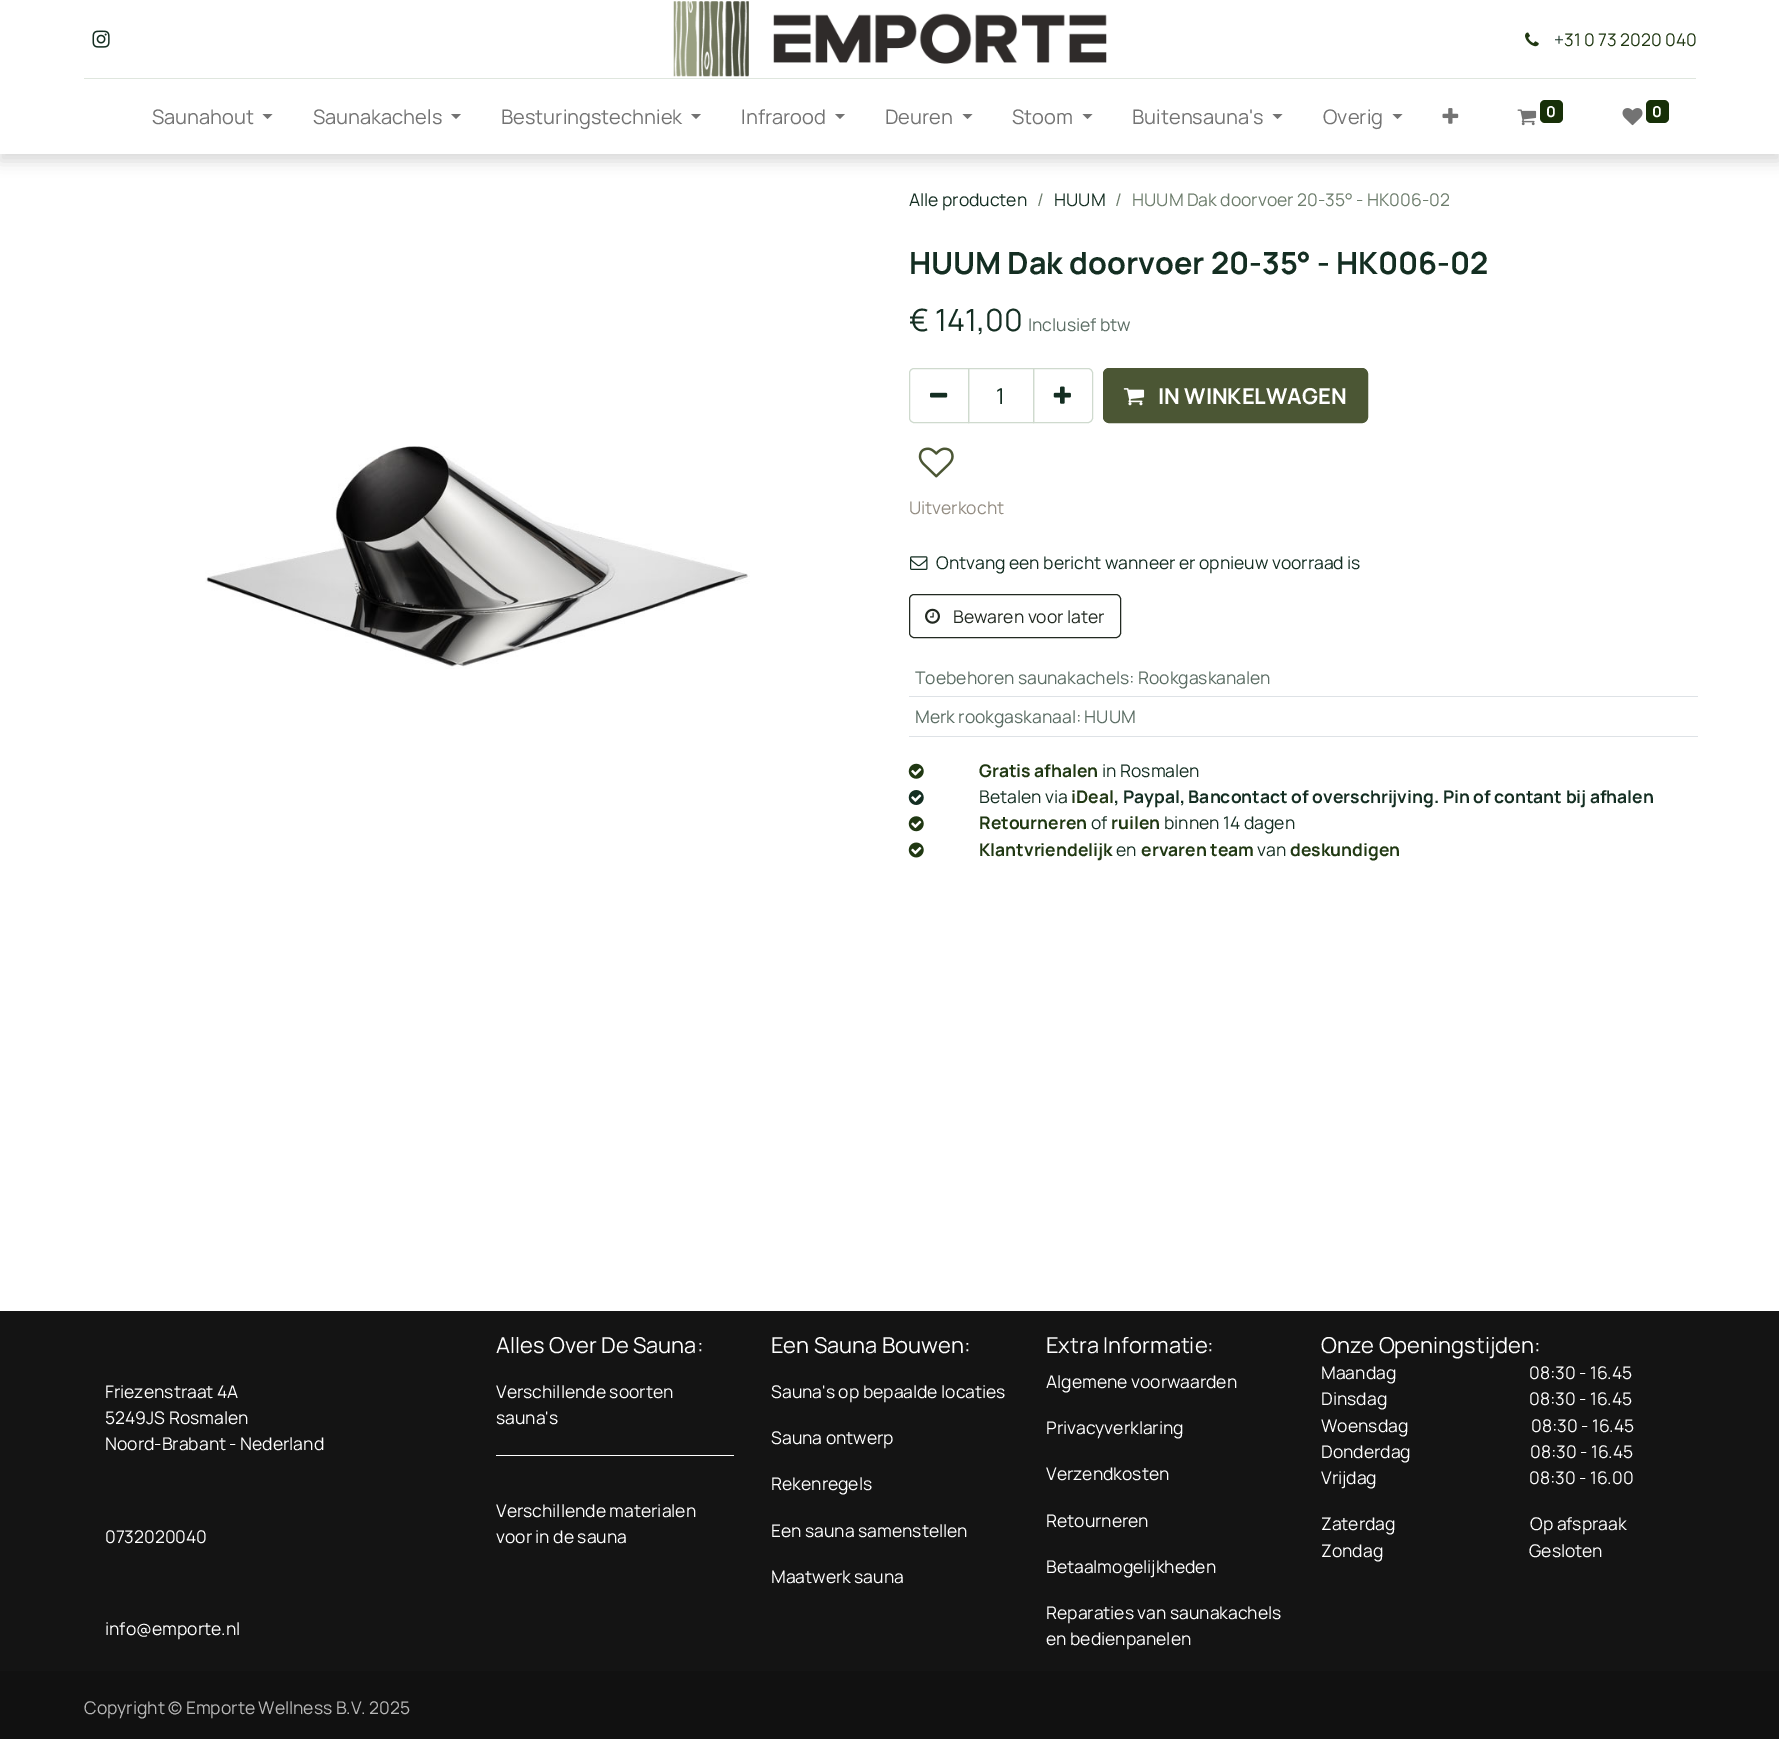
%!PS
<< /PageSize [1779 1739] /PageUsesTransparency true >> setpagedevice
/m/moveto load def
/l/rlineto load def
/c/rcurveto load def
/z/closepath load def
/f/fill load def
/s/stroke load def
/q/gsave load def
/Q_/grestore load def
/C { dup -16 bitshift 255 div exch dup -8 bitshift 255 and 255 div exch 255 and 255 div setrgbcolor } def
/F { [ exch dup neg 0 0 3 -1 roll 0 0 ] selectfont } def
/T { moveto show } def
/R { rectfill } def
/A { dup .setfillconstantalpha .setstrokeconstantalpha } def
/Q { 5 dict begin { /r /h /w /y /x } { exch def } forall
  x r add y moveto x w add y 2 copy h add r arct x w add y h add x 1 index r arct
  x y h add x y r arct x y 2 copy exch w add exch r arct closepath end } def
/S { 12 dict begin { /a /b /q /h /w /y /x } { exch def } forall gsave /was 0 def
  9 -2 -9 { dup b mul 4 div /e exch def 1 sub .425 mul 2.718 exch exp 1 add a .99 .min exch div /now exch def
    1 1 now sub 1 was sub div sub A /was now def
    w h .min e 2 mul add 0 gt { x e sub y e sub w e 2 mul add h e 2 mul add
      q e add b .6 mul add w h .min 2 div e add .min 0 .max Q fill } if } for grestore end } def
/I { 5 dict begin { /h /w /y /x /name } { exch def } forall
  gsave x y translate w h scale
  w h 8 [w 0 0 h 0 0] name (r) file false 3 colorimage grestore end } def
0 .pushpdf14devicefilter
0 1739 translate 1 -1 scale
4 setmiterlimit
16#FFFFFF C
0 0 1779 1739 R
16#000000 C
0 8 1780 153 0 7.5 .15 S
16#FFFFFF C
0 0 1779 154 R
(1.rgb) 92 30 18 18 I
(2.rgb) 673 1 434 76 I
(3.rgb) 1525 32 14 15 I
/Manrope-Regular 17.5 F
16#142E22 C
(+) 1554 46 T
16#203812 C
(31 0 73 2020 040) 1564 46 T
16#DFE6DE C
84 78 1612 1 R
/Manrope-Regular 20 F
16#737373 C
(Saunahout) 152 124 T
262.5 114 m 10 0 l -5 5 l z f
(Saunakachels) 313 124 T
451 114 m 10 0 l -5 5 l z f
(Besturingstechniek) 501 124 T
691 114 m 10 0 l -5 5 l z f
(Infrarood) 741 124 T
835 114 m 10 0 l -5 5 l z f
(Deuren) 885 124 T
962.5 114 m 10 0 l -5 5 l z f
(Stoom) 1012 124 T
1082.5 114 m 10 0 l -5 5 l z f
(Buitensauna's) 1132 124 T
1272.5 114 m 10 0 l -5 5 l z f
(Overig) 1323 124 T
1392.5 114 m 10 0 l -5 5 l z f
(4.rgb) 1442 108 17 16 I
(5.rgb) 1517 109 20 17 I
16#173008 C
1540 100 23 23 5 Q f
/Manrope-Bold 15 F
16#FFFFFF C
(0) 1546 117 T
(6.rgb) 1622 108 21 18 I
16#173008 C
1646 100 23 23 5 Q f
16#FFFFFF C
(0) 1652 117 T
/Manrope-Regular 17.5 F
16#142E22 C
(Alle producten) 909 206 T
16#6D7D6C C
(/) 1037 206 T
16#142E22 C
(HUUM) 1054 206 T
16#6D7D6C C
(/) 1115 206 T
(HUUM Dak doorvoer 20-35° - HK006-02) 1132 206 T
(7.rgb) 205 446 545 223 I
/Manrope-Bold 30.6 F
16#142E22 C
(HUUM Dak doorvoer 20-35° - HK006-02) 909 274 T
/Manrope-Regular 30.6 F
(€ 141,00) 909 331 T
/Manrope-Regular 17.5 F
16#5B6D64 C
(Inclusief btw) 1028 331 T
16#CFDACE C
968.5 368.5 65 54 rectstroke
914 368.5 m 54.5 0 l 0 54 l -54.5 0 l -2.5 0 -4.5 -2 -4.5 -4.5 c 0 -45 l 0 -2.5 2 -4.5 4.5 -4.5 c z s
(8.rgb) 930 392 18 6 I
/Manrope-Regular 21.9 F
16#142E22 C
(1) 996 404 T
16#CFDACE C
1033.5 368.5 m 54.5 0 l 2.5 0 4.5 2 4.5 4.5 c 0 45 l 0 2.5 -2 4.5 -4.5 4.5 c -54.5 0 l z s
(9.rgb) 1053 386 18 18 I
16#4B5634 C
1103.5 368.5 264 54 5.5 Q q f Q_
s
(10.rgb) 1123 388 22 18 I
/Manrope-Bold 21.9 F
16#FFFFFF C
(IN WINKELWAGEN) 1158 404 T
(11.rgb) 918 447 36 31 I
/Manrope-Regular 17.5 F
16#938C82 C
(Uitverkocht) 909 514 T
(12.rgb) 910 556 18 14 I
16#142E22 C
(Ontvang een bericht wanneer er opnieuw voorraad is) 936 569 T
16#222921 C
909.5 594.5 211 43 4.5 Q s
(13.rgb) 925 608 15 16 I
(Bewaren voor later) 953 623 T
16#DEE2E6 C
909 696 789 1 R
16#5B6D64 C
(Toebehoren saunakachels: Rookgaskanalen) 915 684 T
16#DEE2E6 C
909 736 789 1 R
16#5B6D64 C
(Merk rookgaskanaal: HUUM) 915 723 T
(14.rgb) 908 763 16 16 I
/Manrope-Bold 17.5 F
16#203812 C
(Gratis afhalen) 979 777 T
/Manrope-Regular 17.5 F
16#142E22 C
(in Rosmalen) 1102 777 T
(15.rgb) 908 790 16 15 I
(Betalen via) 979 803 T
/Manrope-Bold 17.5 F
16#203812 C
(iDeal) 1071 803 T
16#142E22 C
(, Paypal, Bancontact of overschrijving. Pin of contant bij afhalen) 1114 803 T
(16.rgb) 908 816 16 16 I
16#203812 C
(Retourneren) 979 829 T
/Manrope-Regular 17.5 F
16#142E22 C
(of) 1091 829 T
/Manrope-Bold 17.5 F
16#203812 C
(ruilen) 1111 829 T
/Manrope-Regular 17.5 F
16#142E22 C
(binnen 14 dagen) 1164 829 T
(17.rgb) 908 842 16 16 I
/Manrope-Bold 17.5 F
16#203812 C
(Klantvriendelijk) 979 856 T
/Manrope-Regular 17.5 F
16#142E22 C
(en) 1116 856 T
/Manrope-Bold 17.5 F
16#203812 C
(ervaren team) 1141 856 T
/Manrope-Regular 17.5 F
16#142E22 C
(van) 1257 856 T
/Manrope-Bold 17.5 F
16#203812 C
(deskundigen) 1290 856 T
16#141414 C
0 1311 1779 360 R
/Manrope-Regular 17.5 F
16#FFFFFF C
(Friezenstraat 4A) 105 1398 T
(5249JS Rosmalen) 105 1424 T
(Noord-Brabant - Nederland) 105 1450 T
(0732020040) 105 1543 T
(info@emporte.nl) 105 1635 T
/Manrope-Regular 21.9 F
(Alles Over De Sauna:) 496 1353 T
/Manrope-Regular 17.5 F
(Verschillende soorten) 496 1398 T
(sauna's) 496 1424 T
496 1455 238 1 R
(Verschillende materialen) 496 1517 T
(voor in de sauna) 496 1543 T
/Manrope-Regular 21.9 F
(Een Sauna Bouwen:) 771 1353 T
/Manrope-Regular 17.5 F
(Sauna's op bepaalde locaties) 771 1398 T
(Sauna ontwerp) 771 1444 T
(Rekenregels) 771 1490 T
(Een sauna samenstellen) 771 1537 T
(Maatwerk sauna) 771 1583 T
/Manrope-Regular 21.9 F
(Extra Informatie:) 1046 1353 T
/Manrope-Regular 17.5 F
(Algemene voorwaarden) 1046 1388 T
(Privacyverklaring) 1046 1434 T
(Verzendkosten) 1046 1480 T
(Retourneren) 1046 1527 T
(Betaalmogelijkheden) 1046 1573 T
(Reparaties van saunakachels) 1046 1619 T
(en bedienpanelen) 1046 1645 T
/Manrope-Regular 21.9 F
(Onze Openingstijden:) 1321 1353 T
/Manrope-Regular 17.5 F
(Maandag) 1321 1379 T
(08:30 - 16.45) 1529 1379 T
(Dinsdag) 1321 1405 T
(08:30 - 16.45) 1529 1405 T
(Woensdag) 1321 1432 T
(08:30 - 16.45) 1531 1432 T
(Donderdag) 1321 1458 T
(08:30 - 16.45) 1530 1458 T
(Vrijdag) 1321 1484 T
(08:30 - 16.00) 1529 1484 T
(Zaterdag) 1321 1530 T
(Op afspraak) 1530 1530 T
(Zondag) 1321 1557 T
(Gesloten) 1529 1557 T
16#111111 C
0 1671 1779 68 R
16#B8B8B8 C
(Copyright © Emporte Wellness B.V. 2025) 84 1714 T
.poppdf14devicefilter showpage
